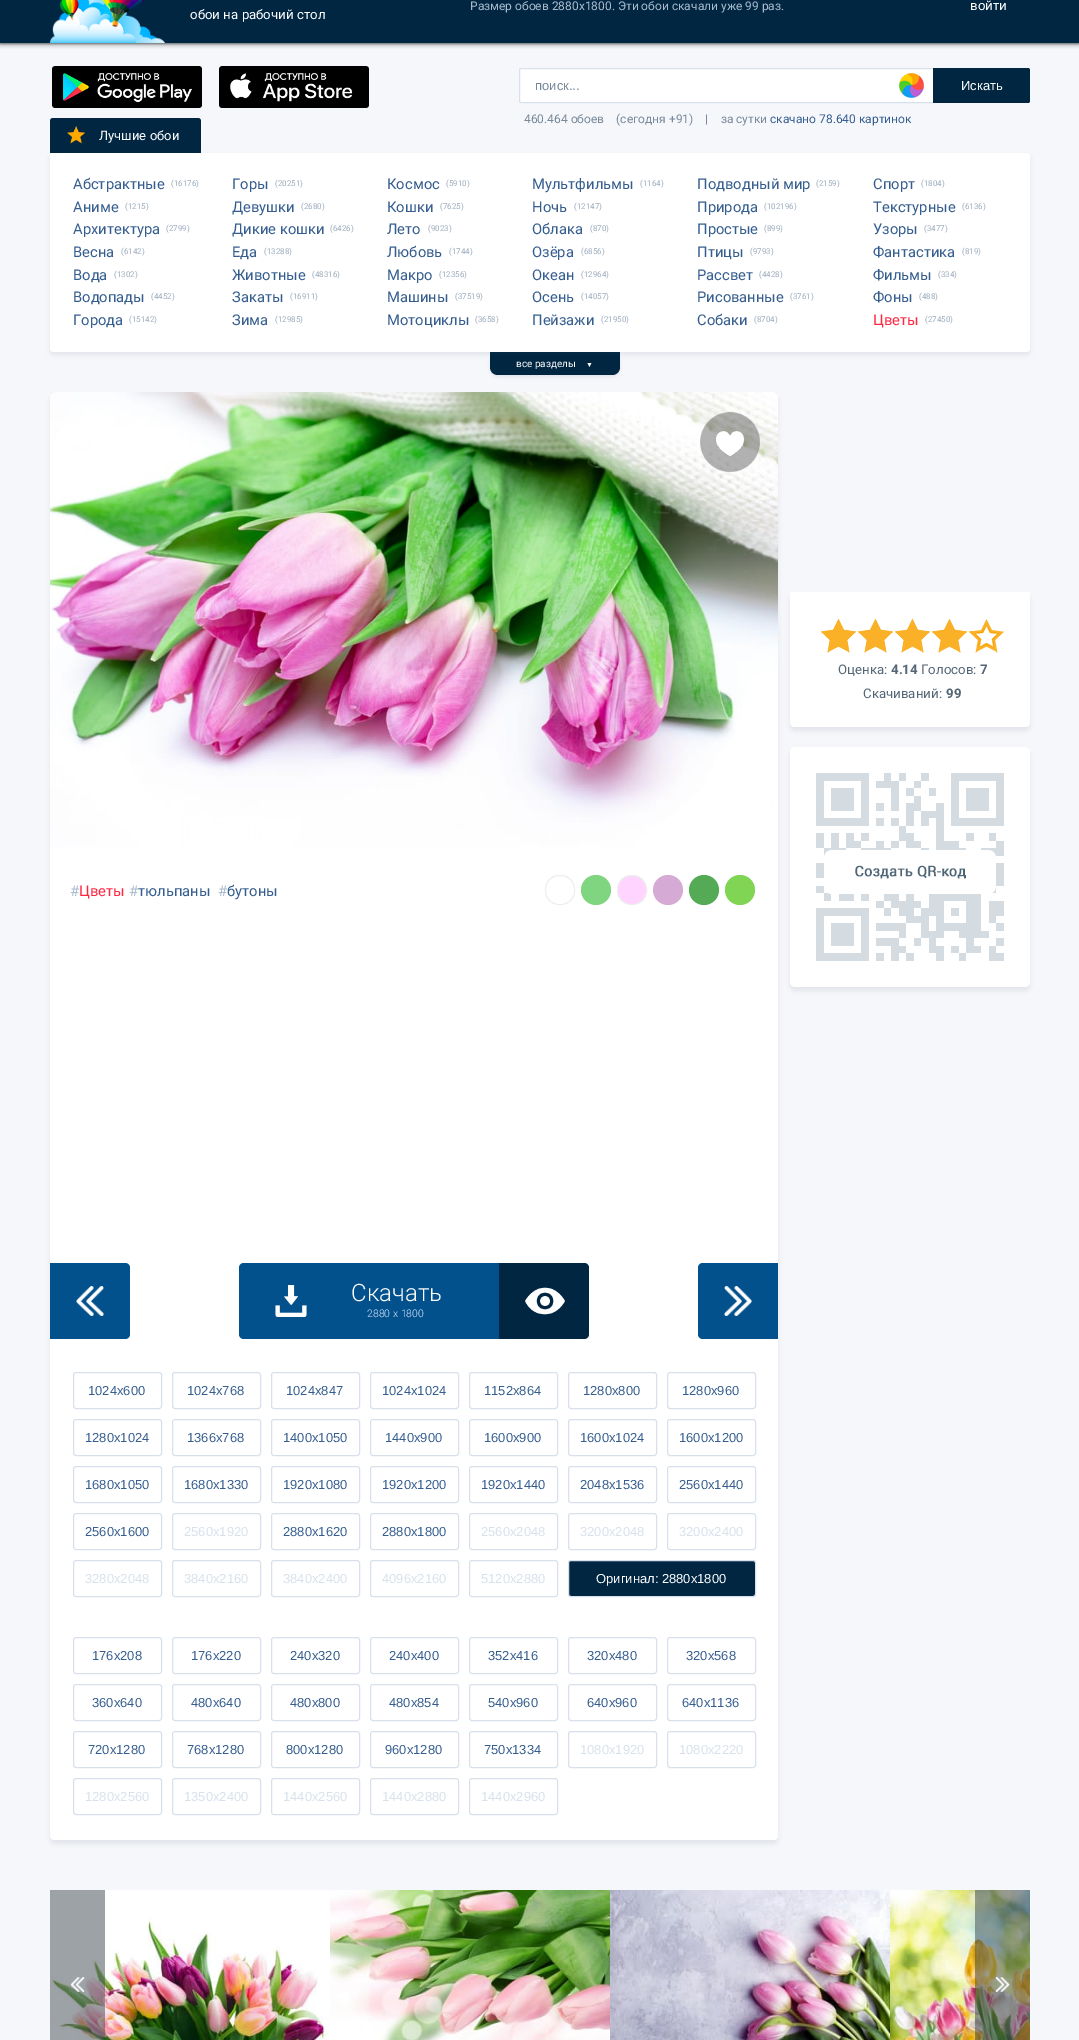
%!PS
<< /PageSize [1079 2040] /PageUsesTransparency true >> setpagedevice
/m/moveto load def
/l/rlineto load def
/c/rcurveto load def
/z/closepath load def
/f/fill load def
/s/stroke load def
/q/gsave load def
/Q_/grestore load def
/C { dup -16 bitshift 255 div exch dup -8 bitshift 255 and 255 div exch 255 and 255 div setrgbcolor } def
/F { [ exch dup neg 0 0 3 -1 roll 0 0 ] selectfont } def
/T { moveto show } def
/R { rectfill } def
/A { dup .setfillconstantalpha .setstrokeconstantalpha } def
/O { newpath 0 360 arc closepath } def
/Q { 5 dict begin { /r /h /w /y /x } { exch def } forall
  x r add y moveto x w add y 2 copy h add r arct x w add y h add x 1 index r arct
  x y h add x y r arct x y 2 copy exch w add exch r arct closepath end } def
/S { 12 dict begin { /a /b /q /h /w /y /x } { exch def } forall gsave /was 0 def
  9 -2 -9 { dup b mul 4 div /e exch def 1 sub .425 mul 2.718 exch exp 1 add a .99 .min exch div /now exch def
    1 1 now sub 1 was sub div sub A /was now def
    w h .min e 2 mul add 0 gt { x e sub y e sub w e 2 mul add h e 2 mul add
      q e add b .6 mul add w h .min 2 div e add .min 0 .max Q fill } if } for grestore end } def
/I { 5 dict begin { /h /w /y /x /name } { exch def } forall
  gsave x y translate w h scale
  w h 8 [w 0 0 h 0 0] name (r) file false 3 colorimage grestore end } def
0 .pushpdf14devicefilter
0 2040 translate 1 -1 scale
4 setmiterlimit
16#F6F7FB C
0 0 1079 2040 R
16#000000 C
0 -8 1079 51 0 2.5 1 S
16#002642 C
0 0 1079 43 R
/Roboto-Regular 12 F
16#AABBCC C
(Размер обоев 2880x1800. Эти обои скачали уже 99 раз.) 470 10 T
/Roboto-Regular 13.25 F
16#FFFFFF C
(войти) 970 10 T
(1.rgb) 50 0 115 43 I
(обои на рабочий стол) 190 19 T
(2.rgb) 52 66 150 42 I
(3.rgb) 219 66 150 42 I
521 68.5 m 412.5 0 l 0 34 l -412.5 0 l -1 0 -1.5 -.5 -1.5 -1.5 c 0 -31 l 0 -1 .5 -1.5 1.5 -1.5 c z q f Q_
16#D8E1EB C
s
/LiberationSans-Regular 13 F
16#778899 C
(поиск...) 535 90 T
(4.rgb) 899 73 25 25 I
16#002642 C
933 68 m 95 0 l 1 0 2 1 2 2 c 0 31 l 0 1 -1 2 -2 2 c -95 0 l z f
16#FFFFFF C
(Искать) 961 90 T
/Roboto-Regular 12 F
16#778899 C
(460.464 обоев \(сегодня +91\) | за сутки) 524 123 T
16#355D8F C
(скачано 78.640 картинок) 770 123 T
16#002642 C
53 118 m 145 0 l 1.5 0 3 1.5 3 3 c 0 32 l -151 0 l 0 -32 l 0 -1.5 1.5 -3 3 -3 c z f
(5.rgb) 67 126 18 18 I
/Roboto-Regular 13 F
16#FFFFFF C
(Лучшие обои) 99 140 T
16#37506E C
490 354 130 23 8 1.5 .1 S
16#002642 C
490 352 m 130 0 l 0 15 l 0 4.5 -3.5 8 -8 8 c -114 0 l -4.5 0 -8 -3.5 -8 -8 c z f
16#37506E C
50 156 980 199 3 2 .1 S
16#FFFFFF C
50 153 980 199 3 Q f
/Roboto-Regular 14.75 F
16#355D8F C
(Абстрактные) 73 189 T
/Roboto-Regular 8 F
16#99AABB C
(\(16176\)) 171 186 T
/Roboto-Regular 14.75 F
16#355D8F C
(Аниме) 73 212 T
/Roboto-Regular 8 F
16#99AABB C
(\(1215\)) 125 209 T
/Roboto-Regular 14.75 F
16#355D8F C
(Архитектура) 73 234 T
/Roboto-Regular 8 F
16#99AABB C
(\(2799\)) 166 231 T
/Roboto-Regular 14.75 F
16#355D8F C
(Весна) 73 257 T
/Roboto-Regular 8 F
16#99AABB C
(\(6142\)) 121 254 T
/Roboto-Regular 14.75 F
16#355D8F C
(Вода) 73 280 T
/Roboto-Regular 8 F
16#99AABB C
(\(1302\)) 114 277 T
/Roboto-Regular 14.75 F
16#355D8F C
(Водопады) 73 302 T
/Roboto-Regular 8 F
16#99AABB C
(\(4452\)) 151 299 T
/Roboto-Regular 14.75 F
16#355D8F C
(Города) 73 325 T
/Roboto-Regular 8 F
16#99AABB C
(\(15142\)) 129 322 T
/Roboto-Regular 14.75 F
16#355D8F C
(Горы) 232 189 T
/Roboto-Regular 8 F
16#99AABB C
(\(20251\)) 275 186 T
/Roboto-Regular 14.75 F
16#355D8F C
(Девушки) 232 212 T
/Roboto-Regular 8 F
16#99AABB C
(\(2680\)) 301 209 T
/Roboto-Regular 14.75 F
16#355D8F C
(Дикие кошки) 232 234 T
/Roboto-Regular 8 F
16#99AABB C
(\(6426\)) 330 231 T
/Roboto-Regular 14.75 F
16#355D8F C
(Еда) 232 257 T
/Roboto-Regular 8 F
16#99AABB C
(\(13288\)) 264 254 T
/Roboto-Regular 14.75 F
16#355D8F C
(Животные) 232 280 T
/Roboto-Regular 8 F
16#99AABB C
(\(48316\)) 312 277 T
/Roboto-Regular 14.75 F
16#355D8F C
(Закаты) 232 302 T
/Roboto-Regular 8 F
16#99AABB C
(\(16911\)) 290 299 T
/Roboto-Regular 14.75 F
16#355D8F C
(Зима) 232 325 T
/Roboto-Regular 8 F
16#99AABB C
(\(12985\)) 275 322 T
/Roboto-Regular 14.75 F
16#355D8F C
(Космос) 387 189 T
/Roboto-Regular 8 F
16#99AABB C
(\(5910\)) 446 186 T
/Roboto-Regular 14.75 F
16#355D8F C
(Кошки) 387 212 T
/Roboto-Regular 8 F
16#99AABB C
(\(7625\)) 440 209 T
/Roboto-Regular 14.75 F
16#355D8F C
(Лето) 387 234 T
/Roboto-Regular 8 F
16#99AABB C
(\(9023\)) 428 231 T
/Roboto-Regular 14.75 F
16#355D8F C
(Любовь) 387 257 T
/Roboto-Regular 8 F
16#99AABB C
(\(1744\)) 449 254 T
/Roboto-Regular 14.75 F
16#355D8F C
(Макро) 387 280 T
/Roboto-Regular 8 F
16#99AABB C
(\(12356\)) 439 277 T
/Roboto-Regular 14.75 F
16#355D8F C
(Машины) 387 302 T
/Roboto-Regular 8 F
16#99AABB C
(\(37519\)) 455 299 T
/Roboto-Regular 14.75 F
16#355D8F C
(Мотоциклы) 387 325 T
/Roboto-Regular 8 F
16#99AABB C
(\(3658\)) 475 322 T
/Roboto-Regular 14.75 F
16#355D8F C
(Мультфильмы) 532 189 T
/Roboto-Regular 8 F
16#99AABB C
(\(1164\)) 640 186 T
/Roboto-Regular 14.75 F
16#355D8F C
(Ночь) 532 212 T
/Roboto-Regular 8 F
16#99AABB C
(\(12147\)) 574 209 T
/Roboto-Regular 14.75 F
16#355D8F C
(Облака) 532 234 T
/Roboto-Regular 8 F
16#99AABB C
(\(870\)) 590 231 T
/Roboto-Regular 14.75 F
16#355D8F C
(Озёра) 532 257 T
/Roboto-Regular 8 F
16#99AABB C
(\(6856\)) 581 254 T
/Roboto-Regular 14.75 F
16#355D8F C
(Океан) 532 280 T
/Roboto-Regular 8 F
16#99AABB C
(\(12964\)) 581 277 T
/Roboto-Regular 14.75 F
16#355D8F C
(Осень) 532 302 T
/Roboto-Regular 8 F
16#99AABB C
(\(14057\)) 581 299 T
/Roboto-Regular 14.75 F
16#355D8F C
(Пейзажи) 532 325 T
/Roboto-Regular 8 F
16#99AABB C
(\(21950\)) 601 322 T
/Roboto-Regular 14.75 F
16#355D8F C
(Подводный мир) 697 189 T
/Roboto-Regular 8 F
16#99AABB C
(\(2159\)) 816 186 T
/Roboto-Regular 14.75 F
16#355D8F C
(Природа) 697 212 T
/Roboto-Regular 8 F
16#99AABB C
(\(102196\)) 764 209 T
/Roboto-Regular 14.75 F
16#355D8F C
(Простые) 697 234 T
/Roboto-Regular 8 F
16#99AABB C
(\(899\)) 764 231 T
/Roboto-Regular 14.75 F
16#355D8F C
(Птицы) 697 257 T
/Roboto-Regular 8 F
16#99AABB C
(\(9793\)) 750 254 T
/Roboto-Regular 14.75 F
16#355D8F C
(Рассвет) 697 280 T
/Roboto-Regular 8 F
16#99AABB C
(\(4428\)) 759 277 T
/Roboto-Regular 14.75 F
16#355D8F C
(Рисованные) 697 302 T
/Roboto-Regular 8 F
16#99AABB C
(\(3761\)) 790 299 T
/Roboto-Regular 14.75 F
16#355D8F C
(Собаки) 697 325 T
/Roboto-Regular 8 F
16#99AABB C
(\(8704\)) 754 322 T
/Roboto-Regular 14.75 F
16#355D8F C
(Спорт) 873 189 T
/Roboto-Regular 8 F
16#99AABB C
(\(1804\)) 921 186 T
/Roboto-Regular 14.75 F
16#355D8F C
(Текстурные) 873 212 T
/Roboto-Regular 8 F
16#99AABB C
(\(6136\)) 962 209 T
/Roboto-Regular 14.75 F
16#355D8F C
(Узоры) 873 234 T
/Roboto-Regular 8 F
16#99AABB C
(\(3477\)) 924 231 T
/Roboto-Regular 14.75 F
16#355D8F C
(Фантастика) 873 257 T
/Roboto-Regular 8 F
16#99AABB C
(\(819\)) 962 254 T
/Roboto-Regular 14.75 F
16#355D8F C
(Фильмы) 873 280 T
/Roboto-Regular 8 F
16#99AABB C
(\(334\)) 938 277 T
/Roboto-Regular 14.75 F
16#355D8F C
(Фоны) 873 302 T
/Roboto-Regular 8 F
16#99AABB C
(\(488\)) 919 299 T
/Roboto-Regular 14.75 F
16#FF2642 C
(Цветы) 873 325 T
/Roboto-Regular 8 F
16#99AABB C
(\(27450\)) 925 322 T
/Roboto-Regular 10 F
16#FFFFFF C
(все разделы) 516 367 T
/LiberationSans-Regular 7 F
(▼) 586 367 T
q
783 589 m 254 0 l 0 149 l -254 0 l z 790 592 m 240 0 l 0 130 l 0 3 -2 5 -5 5 c -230 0 l -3 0 -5 -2 -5 -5 c z eoclip newpath
16#37506E C
790 596 240 135 5 2 .1 S
Q_
790 592 m 240 0 l 0 130 l 0 3 -2 5 -5 5 c -230 0 l -3 0 -5 -2 -5 -5 c z f
(7.rgb) 821 619 183 34 I
(6.rgb) 821 618 152 34 I
/Roboto-Regular 13.25 F
16#556677 C
(Оценка:) 838 674 T
/Roboto-Bold 13.25 F
(4.14) 891 674 T
/Roboto-Regular 13.25 F
(Голосов:) 921 674 T
/Roboto-Bold 13.25 F
(7) 980 674 T
/Roboto-Regular 13.25 F
(Скачиваний:) 863 698 T
/Roboto-Bold 13.25 F
(99) 946 698 T
q
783 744 m 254 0 l 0 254 l -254 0 l z 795 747 m 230 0 l 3 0 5 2 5 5 c 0 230 l 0 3 -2 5 -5 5 c -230 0 l -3 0 -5 -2 -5 -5 c 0 -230 l 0 -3 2 -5 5 -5 c z eoclip newpath
16#37506E C
790 751 240 240 5 2 .1 S
Q_
16#FFFFFF C
790 747 240 240 5 Q f
(8.rgb) 816 773 188 188 I
16#37506E C
50 396 728 1448 5 2 .1 S
(9.rgb) 50 392 728 1448 I
(10.rgb) 50 392 728 455 I
(11.rgb) 700 412 60 60 I
16#FFFFFF C
50 847 m 728 0 l 0 988 l 0 3 -2 5 -5 5 c -718 0 l -3 0 -5 -2 -5 -5 c z f
/Roboto-Regular 14.75 F
16#AABBCC C
(#) 70 896 T
16#FF2642 C
(Цветы) 79 896 T
16#AABBCC C
(#) 129 896 T
16#355D8F C
(тюльпаны) 138 896 T
16#AABBCC C
(#) 218 896 T
16#355D8F C
(бутоны) 227 896 T
16#EEEEEE C
545.5 875.5 29 29 13.5 Q s
16#80D580 C
596 890 15 O f
16#FFD5FF C
617.5 875.5 29 29 13.5 Q q f Q_
16#EEEEEE C
s
16#D5AAD5 C
668 890 15 O f
16#55AA55 C
704 890 15 O f
16#80D555 C
740 890 15 O f
16#02518C C
50 1263 m 75 0 l 3 0 5 2 5 5 c 0 66 l 0 3 -2 5 -5 5 c -75 0 l z f
(12.rgb) 76 1286 29 30 I
244 1263 m 255 0 l 0 76 l -255 0 l -3 0 -5 -2 -5 -5 c 0 -66 l 0 -3 2 -5 5 -5 c z f
(13.rgb) 275 1285 32 32 I
/Roboto-Light 24 F
16#FFFFFF C
(Скачать) 351 1301 T
/Roboto-Light 10.5 F
16#CEE0FA C
(2880 x 1800) 367 1317 T
16#002642 C
499 1263 m 85 0 l 3 0 5 2 5 5 c 0 66 l 0 3 -2 5 -5 5 c -85 0 l z f
(14.rgb) 525 1287 40 28 I
16#02518C C
703 1263 m 75 0 l 0 76 l -75 0 l -3 0 -5 -2 -5 -5 c 0 -66 l 0 -3 2 -5 5 -5 c z f
(15.rgb) 724 1286 29 30 I
16#D8E1EB C
73.5 1372.5 88 36 2.5 Q s
/LiberationSans-Regular 13 F
16#355D8F C
(1024x600) 88 1395 T
16#D8E1EB C
172.5 1372.5 88 36 2.5 Q s
16#355D8F C
(1024x768) 187 1395 T
16#D8E1EB C
271.5 1372.5 88 36 2.5 Q s
16#355D8F C
(1024x847) 286 1395 T
16#D8E1EB C
370.5 1372.5 88 36 2.5 Q s
16#355D8F C
(1024x1024) 382 1395 T
16#D8E1EB C
469.5 1372.5 88 36 2.5 Q s
16#355D8F C
(1152x864) 484 1395 T
16#D8E1EB C
568.5 1372.5 88 36 2.5 Q s
16#355D8F C
(1280x800) 583 1395 T
16#D8E1EB C
667.5 1372.5 88 36 2.5 Q s
16#355D8F C
(1280x960) 682 1395 T
16#D8E1EB C
73.5 1419.5 88 36 2.5 Q s
16#355D8F C
(1280x1024) 85 1442 T
16#D8E1EB C
172.5 1419.5 88 36 2.5 Q s
16#355D8F C
(1366x768) 187 1442 T
16#D8E1EB C
271.5 1419.5 88 36 2.5 Q s
16#355D8F C
(1400x1050) 283 1442 T
16#D8E1EB C
370.5 1419.5 88 36 2.5 Q s
16#355D8F C
(1440x900) 385 1442 T
16#D8E1EB C
469.5 1419.5 88 36 2.5 Q s
16#355D8F C
(1600x900) 484 1442 T
16#D8E1EB C
568.5 1419.5 88 36 2.5 Q s
16#355D8F C
(1600x1024) 580 1442 T
16#D8E1EB C
667.5 1419.5 88 36 2.5 Q s
16#355D8F C
(1600x1200) 679 1442 T
16#D8E1EB C
73.5 1466.5 88 36 2.5 Q s
16#355D8F C
(1680x1050) 85 1489 T
16#D8E1EB C
172.5 1466.5 88 36 2.5 Q s
16#355D8F C
(1680x1330) 184 1489 T
16#D8E1EB C
271.5 1466.5 88 36 2.5 Q s
16#355D8F C
(1920x1080) 283 1489 T
16#D8E1EB C
370.5 1466.5 88 36 2.5 Q s
16#355D8F C
(1920x1200) 382 1489 T
16#D8E1EB C
469.5 1466.5 88 36 2.5 Q s
16#355D8F C
(1920x1440) 481 1489 T
16#D8E1EB C
568.5 1466.5 88 36 2.5 Q s
16#355D8F C
(2048x1536) 580 1489 T
16#D8E1EB C
667.5 1466.5 88 36 2.5 Q s
16#355D8F C
(2560x1440) 679 1489 T
16#D8E1EB C
73.5 1513.5 88 36 2.5 Q s
16#355D8F C
(2560x1600) 85 1536 T
16#D8E1EB C
172.5 1513.5 88 36 2.5 Q s
(2560x1920) 184 1536 T
271.5 1513.5 88 36 2.5 Q s
16#355D8F C
(2880x1620) 283 1536 T
16#D8E1EB C
370.5 1513.5 88 36 2.5 Q s
16#355D8F C
(2880x1800) 382 1536 T
16#D8E1EB C
469.5 1513.5 88 36 2.5 Q s
(2560x2048) 481 1536 T
568.5 1513.5 88 36 2.5 Q s
(3200x2048) 580 1536 T
667.5 1513.5 88 36 2.5 Q s
(3200x2400) 679 1536 T
73.5 1560.5 88 36 2.5 Q s
(3280x2048) 85 1583 T
172.5 1560.5 88 36 2.5 Q s
(3840x2160) 184 1583 T
271.5 1560.5 88 36 2.5 Q s
(3840x2400) 283 1583 T
370.5 1560.5 88 36 2.5 Q s
(4096x2160) 382 1583 T
469.5 1560.5 88 36 2.5 Q s
(5120x2880) 481 1583 T
16#002642 C
568.5 1560.5 187 36 2.5 Q q f Q_
16#D8E1EB C
s
16#FFFFFF C
(Оригинал: 2880x1800) 596 1583 T
16#D8E1EB C
73.5 1637.5 88 36 2.5 Q s
16#355D8F C
(176x208) 92 1660 T
16#D8E1EB C
172.5 1637.5 88 36 2.5 Q s
16#355D8F C
(176x220) 191 1660 T
16#D8E1EB C
271.5 1637.5 88 36 2.5 Q s
16#355D8F C
(240x320) 290 1660 T
16#D8E1EB C
370.5 1637.5 88 36 2.5 Q s
16#355D8F C
(240x400) 389 1660 T
16#D8E1EB C
469.5 1637.5 88 36 2.5 Q s
16#355D8F C
(352x416) 488 1660 T
16#D8E1EB C
568.5 1637.5 88 36 2.5 Q s
16#355D8F C
(320x480) 587 1660 T
16#D8E1EB C
667.5 1637.5 88 36 2.5 Q s
16#355D8F C
(320x568) 686 1660 T
16#D8E1EB C
73.5 1684.5 88 36 2.5 Q s
16#355D8F C
(360x640) 92 1707 T
16#D8E1EB C
172.5 1684.5 88 36 2.5 Q s
16#355D8F C
(480x640) 191 1707 T
16#D8E1EB C
271.5 1684.5 88 36 2.5 Q s
16#355D8F C
(480x800) 290 1707 T
16#D8E1EB C
370.5 1684.5 88 36 2.5 Q s
16#355D8F C
(480x854) 389 1707 T
16#D8E1EB C
469.5 1684.5 88 36 2.5 Q s
16#355D8F C
(540x960) 488 1707 T
16#D8E1EB C
568.5 1684.5 88 36 2.5 Q s
16#355D8F C
(640x960) 587 1707 T
16#D8E1EB C
667.5 1684.5 88 36 2.5 Q s
16#355D8F C
(640x1136) 682 1707 T
16#D8E1EB C
73.5 1731.5 88 36 2.5 Q s
16#355D8F C
(720x1280) 88 1754 T
16#D8E1EB C
172.5 1731.5 88 36 2.5 Q s
16#355D8F C
(768x1280) 187 1754 T
16#D8E1EB C
271.5 1731.5 88 36 2.5 Q s
16#355D8F C
(800x1280) 286 1754 T
16#D8E1EB C
370.5 1731.5 88 36 2.5 Q s
16#355D8F C
(960x1280) 385 1754 T
16#D8E1EB C
469.5 1731.5 88 36 2.5 Q s
16#355D8F C
(750x1334) 484 1754 T
16#D8E1EB C
568.5 1731.5 88 36 2.5 Q s
(1080x1920) 580 1754 T
667.5 1731.5 88 36 2.5 Q s
(1080x2220) 679 1754 T
73.5 1778.5 88 36 2.5 Q s
(1280x2560) 85 1801 T
172.5 1778.5 88 36 2.5 Q s
(1350x2400) 184 1801 T
271.5 1778.5 88 36 2.5 Q s
(1440x2560) 283 1801 T
370.5 1778.5 88 36 2.5 Q s
(1440x2880) 382 1801 T
469.5 1778.5 88 36 2.5 Q s
(1440x2960) 481 1801 T
(16.rgb) 50 1890 280 150 I
(17.rgb) 330 1890 280 150 I
(18.rgb) 610 1890 280 150 I
(19.rgb) 890 1890 140 150 I
0.5 A
16#3C4650 C
50 1890 55 150 R
1 A
(20.rgb) 70 1977 15 15 I
0.5 A
975 1890 55 150 R
1 A
(21.rgb) 995 1977 15 15 I
.poppdf14devicefilter showpage
